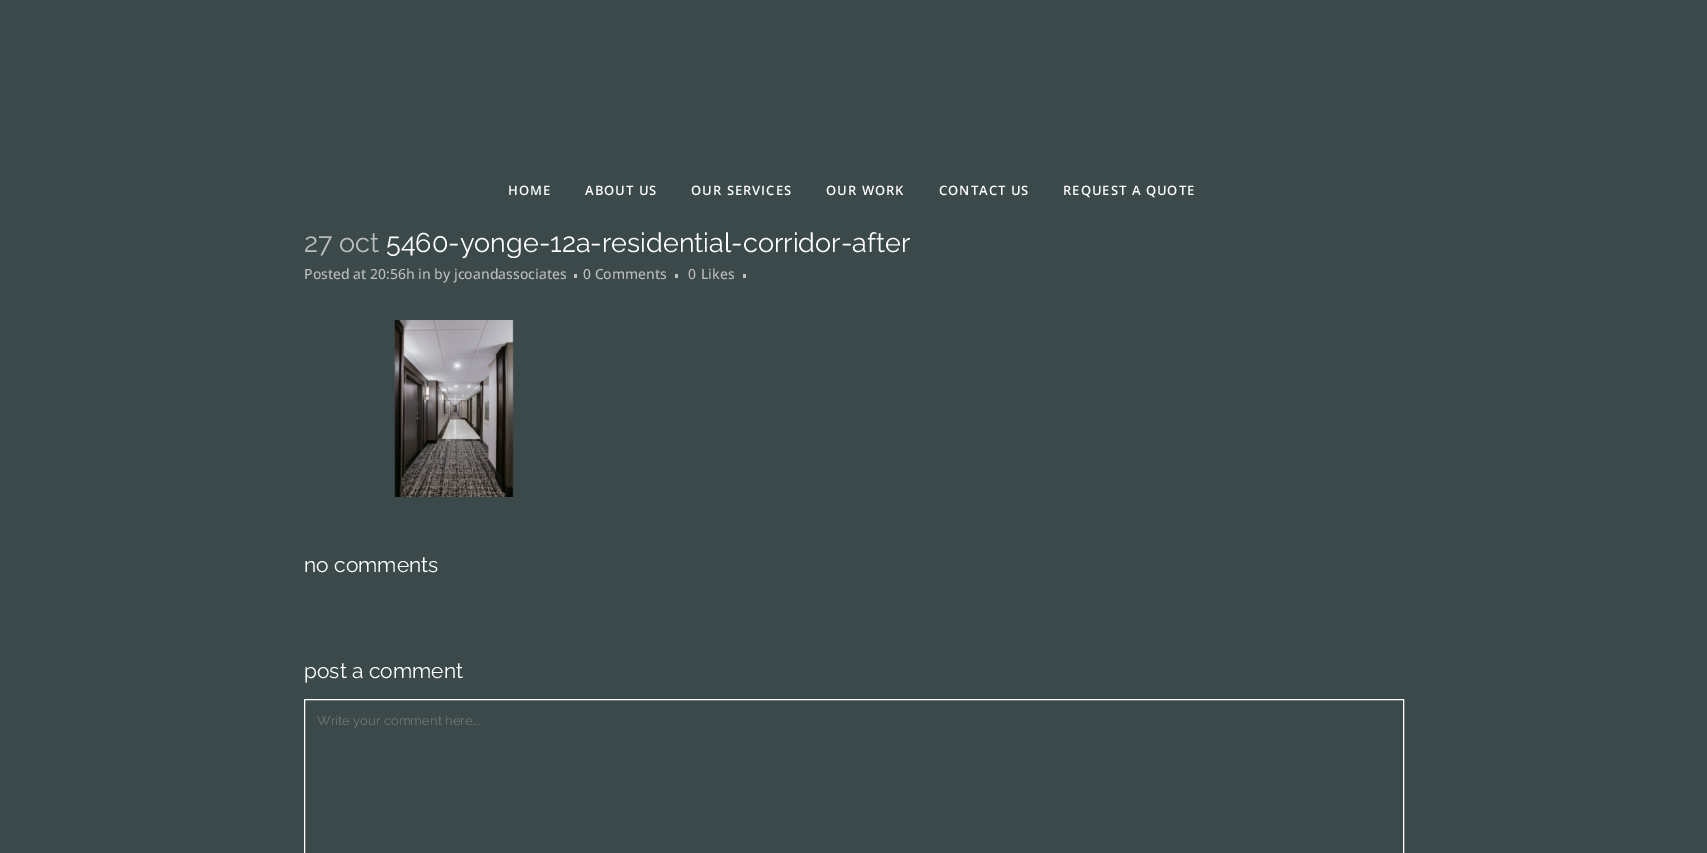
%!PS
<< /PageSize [1707 853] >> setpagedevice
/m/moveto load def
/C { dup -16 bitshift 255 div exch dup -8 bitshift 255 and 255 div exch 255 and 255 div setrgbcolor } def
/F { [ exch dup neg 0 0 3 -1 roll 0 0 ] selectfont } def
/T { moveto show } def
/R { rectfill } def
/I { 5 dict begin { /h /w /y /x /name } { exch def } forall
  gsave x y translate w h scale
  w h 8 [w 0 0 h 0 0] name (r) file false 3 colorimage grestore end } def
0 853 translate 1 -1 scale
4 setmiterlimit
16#3B494A C
0 0 1707 853 R
/OpenSans-SemiBold 13 F
16#FFFFFF C
508 195 m 1 0 (HOME) ashow
585 195 m 1 0 (ABOUT US) ashow
691 195 m 1 0 (OUR SERVICES) ashow
826 195 m 1 0 (OUR WORK) ashow
939 195 m 1 0 (CONTACT US) ashow
1063 195 m 1 0 (REQUEST A QUOTE) ashow
/Raleway-Regular 27 F
16#BEBEBE C
(27 oct) 304 252 T
16#FFFFFF C
(5460-yonge-12a-residential-corridor-after) 386 252 T
/OpenSans-Medium 14 F
16#BEBEBE C
(Posted at 20:56h in by jcoandassociates) 304 279 T
574 274 3 4 R
(0 Comments) 583 279 T
675 274 3 4 R
(0) 688 279 T
(Likes) 701 279 T
743 274 3 4 R
(1.rgb) 392 320 128 177 I
/Raleway-Regular 21 F
16#FFFFFF C
(no comments) 304 572 T
(post a comment) 304 678 T
304.5 699.5 1099 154 rectstroke
/Raleway-Regular 13 F
16#757575 C
(Write your comment here...) 317 725 T
showpage
